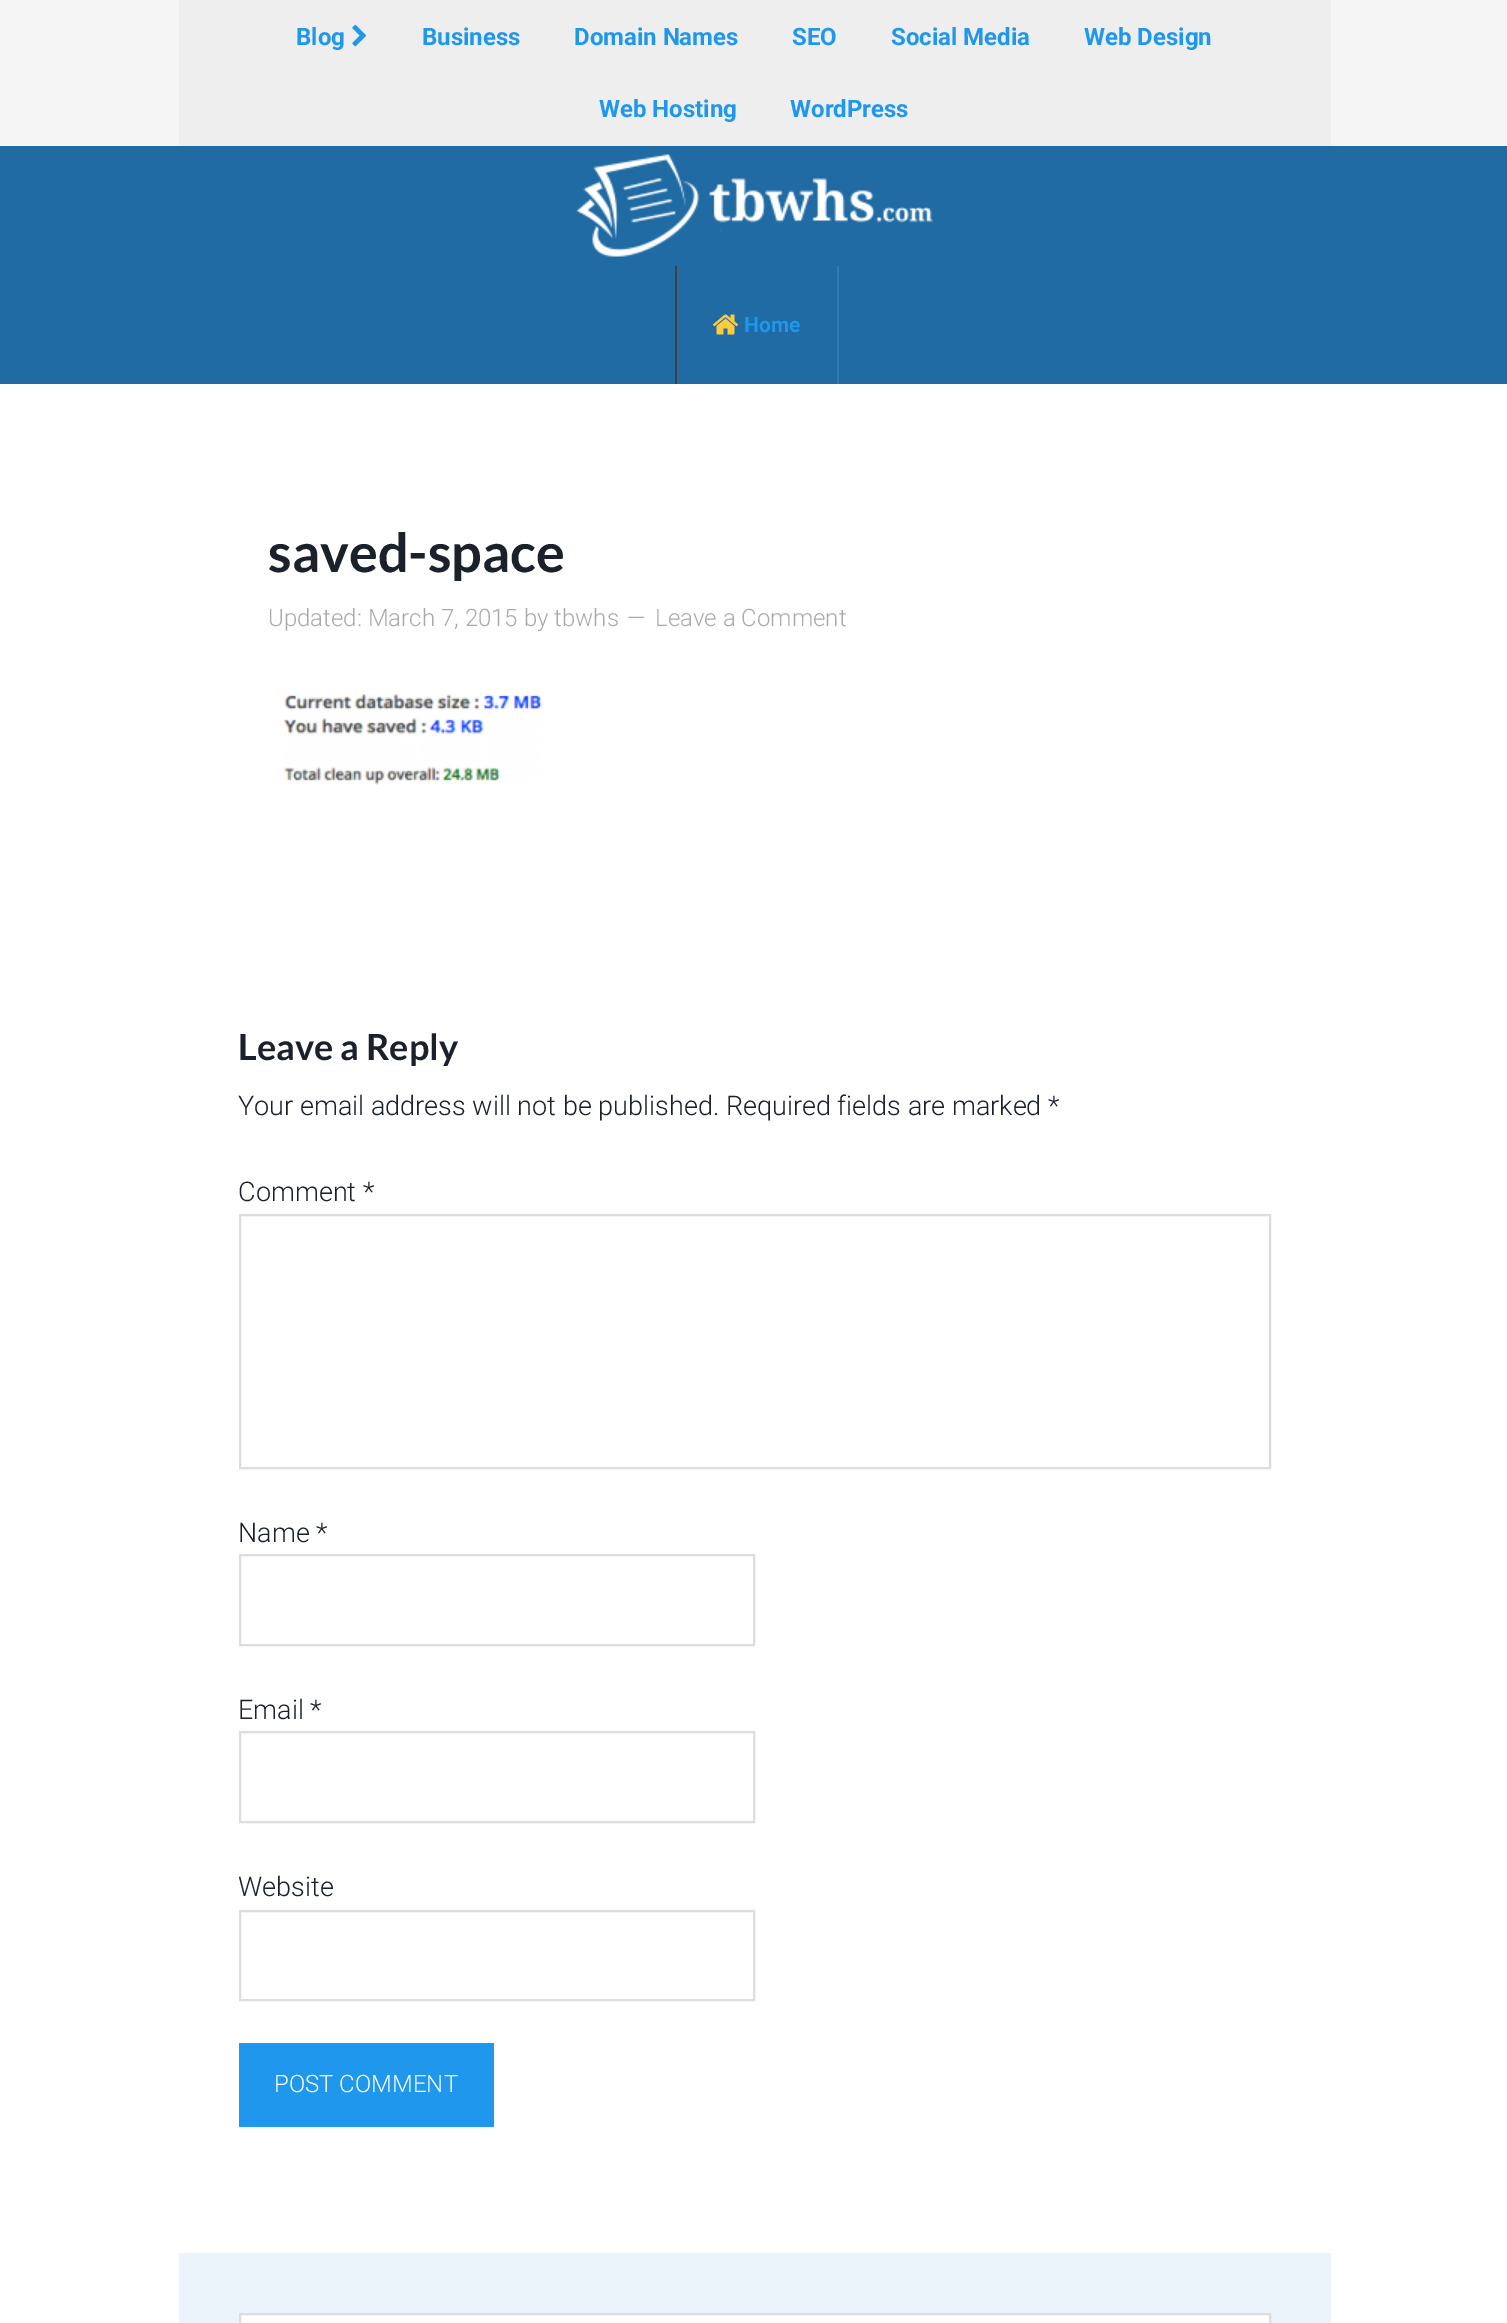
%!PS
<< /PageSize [1507 2323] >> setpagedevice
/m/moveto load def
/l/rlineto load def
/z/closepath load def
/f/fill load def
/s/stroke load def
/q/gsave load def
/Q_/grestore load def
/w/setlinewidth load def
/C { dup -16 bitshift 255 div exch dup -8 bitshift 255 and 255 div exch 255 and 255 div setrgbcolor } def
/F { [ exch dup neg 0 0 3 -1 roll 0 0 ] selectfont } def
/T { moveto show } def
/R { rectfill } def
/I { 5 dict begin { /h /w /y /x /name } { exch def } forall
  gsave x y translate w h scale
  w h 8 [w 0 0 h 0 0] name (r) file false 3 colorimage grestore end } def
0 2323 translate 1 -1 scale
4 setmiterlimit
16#F5F5F5 C
0 0 1507 2323 R
16#EEEEEE C
179 0 1152 146 R
/Roboto-Bold 24 F
16#1E97ED C
(Blog) 296 45 T
(1.rgb) 352 24 14 23 I
(Business) 422 45 T
(Domain Names) 574 45 T
(SEO) 792 45 T
(Social Media) 891 45 T
(Web Design) 1084 45 T
(Web Hosting) 599 117 T
(WordPress) 790 117 T
16#206BA4 C
0 146 1507 238 R
(2.rgb) 576 154 358 103 I
16#367AAD C
837 266 2 118 R
16#404040 C
675 266 2 118 R
(3.rgb) 712 314 27 21 I
/Roboto-Bold 21 F
16#1E97ED C
(Home) 744 332 T
16#FFFFFF C
0 384 1507 1939 R
/Lato-Bold 54 F
16#1A212B C
(saved-space) 268 572 T
/Roboto-Light 24 F
16#AAAAAA C
(Updated: March 7, 2015 by tbwhs) 268 626 T
(—) 627 626 T
(Leave a Comment) 655 626 T
(4.rgb) 283 694 259 91 I
/Lato-Bold 36 F
16#1A212B C
(Leave a Reply) 238 1060 T
/Roboto-Light 27 F
(Your email address will not be published. Required fields are marked *) 238 1115 T
(Comment *) 238 1201 T
16#DDDDDD C
2 w
240 1215 1030 253 rectstroke
16#1A212B C
(Name *) 238 1542 T
16#DDDDDD C
240 1555 514 90 rectstroke
16#1A212B C
(Email *) 238 1719 T
16#DDDDDD C
240 1732 514 90 rectstroke
16#1A212B C
(Website) 238 1896 T
16#DDDDDD C
240 1911 514 89 rectstroke
16#1E97ED C
239 2043 255 84 R
/Roboto-Light 24 F
16#FFFFFF C
(POST COMMENT) 274 2092 T
16#EBF4FA C
179 2253 1152 70 R
16#FFFFFF C
240 2314 m 1030 0 l 0 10 l -1030 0 l z q f Q_
16#DDDDDD C
s
showpage
